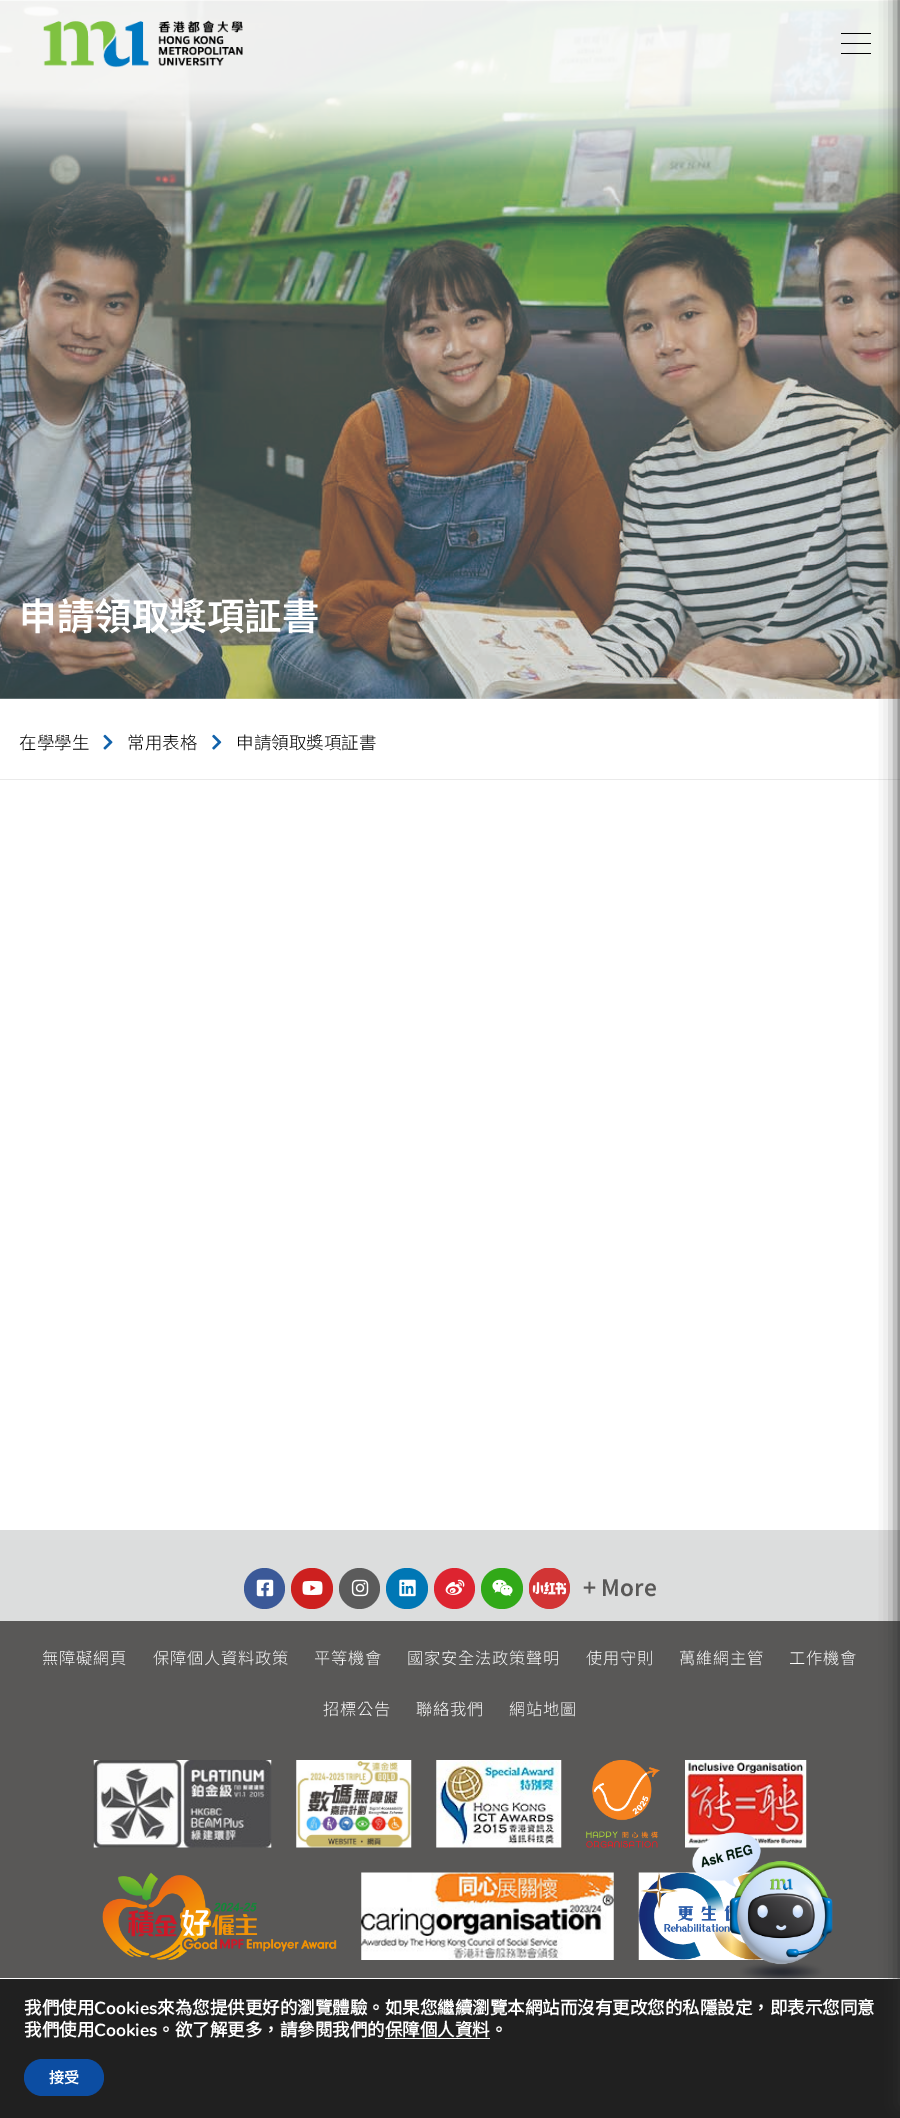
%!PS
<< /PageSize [900 2118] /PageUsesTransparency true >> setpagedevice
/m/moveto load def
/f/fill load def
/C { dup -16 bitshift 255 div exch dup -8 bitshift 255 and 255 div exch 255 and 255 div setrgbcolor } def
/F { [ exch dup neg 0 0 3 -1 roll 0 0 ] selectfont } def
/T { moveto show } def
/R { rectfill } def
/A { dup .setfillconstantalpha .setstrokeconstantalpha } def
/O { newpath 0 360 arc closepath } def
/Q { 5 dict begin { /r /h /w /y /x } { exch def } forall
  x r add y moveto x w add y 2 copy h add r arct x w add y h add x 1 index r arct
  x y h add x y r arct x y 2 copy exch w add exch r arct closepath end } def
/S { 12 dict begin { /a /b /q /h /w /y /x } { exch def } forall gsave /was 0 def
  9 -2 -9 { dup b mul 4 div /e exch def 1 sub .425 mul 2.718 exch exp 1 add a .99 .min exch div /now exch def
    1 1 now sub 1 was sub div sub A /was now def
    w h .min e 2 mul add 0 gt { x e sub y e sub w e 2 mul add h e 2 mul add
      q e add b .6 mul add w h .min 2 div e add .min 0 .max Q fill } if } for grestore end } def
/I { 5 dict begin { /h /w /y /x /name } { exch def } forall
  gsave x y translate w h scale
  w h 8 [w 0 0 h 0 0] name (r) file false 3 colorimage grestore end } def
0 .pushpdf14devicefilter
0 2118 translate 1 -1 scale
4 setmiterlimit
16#FFFFFF C
0 0 900 2118 R
(2.rgb) 0 0 900 699 I
(1.rgb) 43 20 200 48 I
16#000000 C
841 43 30 1 R
841 33 30 1 R
841 53 30 1 R
16#EAEAEA C
0 779 900 1 R
16#DCDDDD C
0 1530 900 91 R
16#595857 C
0 1621 900 357 R
16#202020 C
0 1979 900 139 R
16#2D2D2D C
900 -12 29 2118 0 9.5 1 S
/NotoSansTC-SemiBold 37.5 F
16#FFFFFF C
(申請領取獎項証書) 19 630 T
/NotoSansTC-Light 17.5 F
16#000000 C
(在學學生) 19 749 T
(3.rgb) 103 734 10 16 I
(常用表格) 127 749 T
(4.rgb) 212 734 10 16 I
(申請領取獎項証書) 236 749 T
16#3B5998 C
264.5 1588.5 20.5 O f
(5.rgb) 256 1579 18 18 I
16#CD201F C
291 1568 42 41 20.5 Q f
(6.rgb) 302 1580 21 15 I
16#5B5B5B C
359.5 1588.5 20.5 O f
(7.rgb) 351 1579 18 18 I
16#0077B5 C
386 1568 42 41 20.5 Q f
(8.rgb) 399 1579 17 18 I
16#DD2430 C
454.5 1588.5 20.5 O f
(9.rgb) 445 1579 20 16 I
16#31A918 C
481 1568 42 41 20.5 Q f
(10.rgb) 492 1579 21 18 I
16#D23535 C
549.5 1588.5 20.5 O f
(11.rgb) 529 1568 41 41 I
/NotoSansTC-SemiBold 22.5 F
16#595857 C
(+ More) 583 1596 T
/NotoSansTC-Light 16.25 F
16#FFFFFF C
42 1664 m .75 0 (無障礙網頁) ashow
153 1664 m .75 0 (保障個人資料政策) ashow
314 1664 m .75 0 (平等機會) ashow
407 1664 m .75 0 (國家安全法政策聲明) ashow
586 1664 m .75 0 (使用守則) ashow
679 1664 m .75 0 (萬維網主管) ashow
789 1664 m .75 0 (工作機會) ashow
323 1715 m .75 0 (招標公告) ashow
416 1715 m .75 0 (聯絡我們) ashow
509 1715 m .75 0 (網站地圖) ashow
(12.rgb) 93 1760 179 88 I
(13.rgb) 296 1760 116 88 I
(14.rgb) 436 1760 126 88 I
(15.rgb) 586 1760 74 88 I
(16.rgb) 685 1760 122 88 I
(17.rgb) 102 1872 235 88 I
(18.rgb) 361 1872 253 88 I
(19.rgb) 638 1872 126 88 I
(20.rgb) 692 1832 141 148 I
/NotoSansCJKTC-Bold 17.5 F
(我們使用) 24 2014 T
/Nunito-Bold 17.5 F
(Cookies) 94 2014 T
/NotoSansCJKTC-Bold 17.5 F
(來為您提供更好的瀏覽體驗。如果您繼續瀏覽本網站而沒有更改您的私隱設定，即表示您同意) 157 2014 T
(我們使用) 24 2036 T
/Nunito-Bold 17.5 F
(Cookies) 94 2036 T
/NotoSansCJKTC-Bold 17.5 F
(。欲了解更多，請參閱我們的保障個人資料。) 157 2036 T
385 2038 105 1 R
16#0C4DA2 C
24 2059 80 37 18.5 Q f
/NotoSansCJKTC-Bold 15 F
16#FFFFFF C
(接受) 49 2083 T
.poppdf14devicefilter showpage
